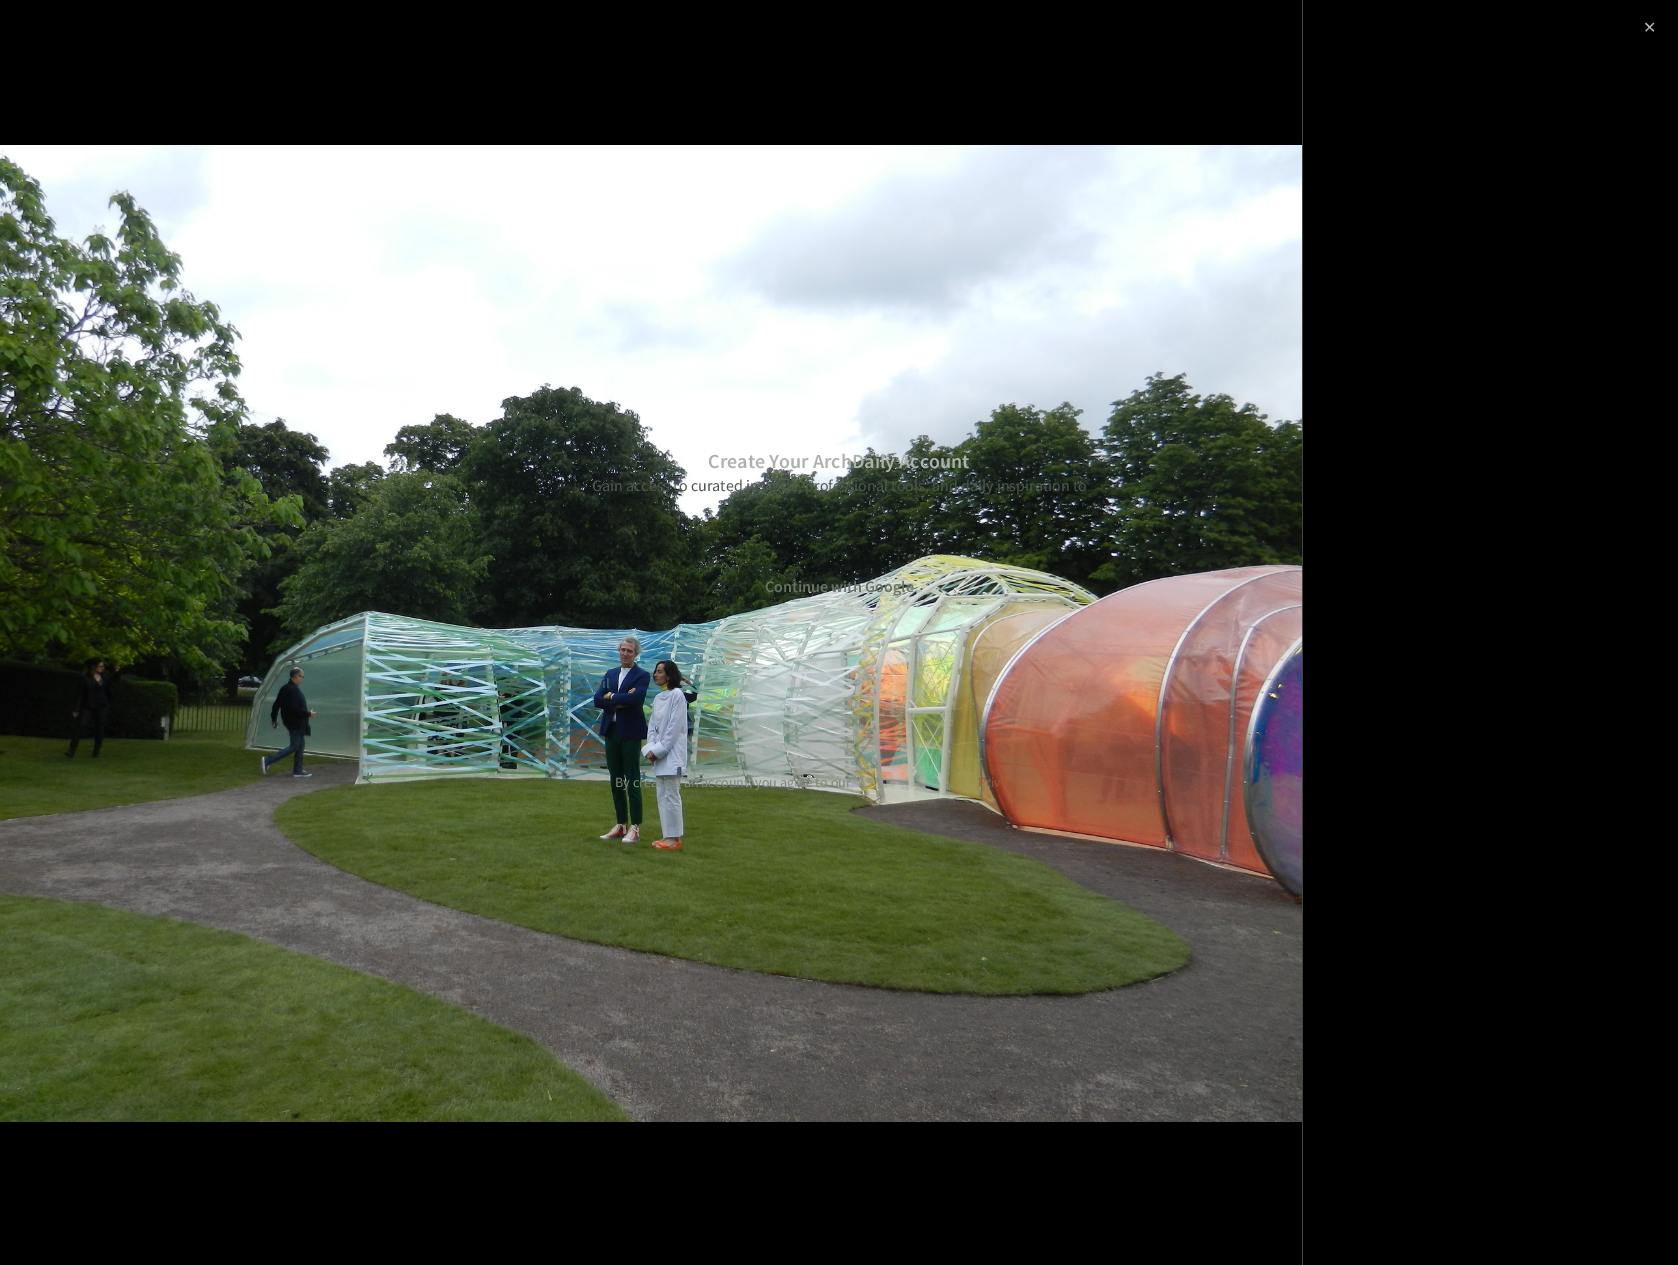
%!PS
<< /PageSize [1678 1265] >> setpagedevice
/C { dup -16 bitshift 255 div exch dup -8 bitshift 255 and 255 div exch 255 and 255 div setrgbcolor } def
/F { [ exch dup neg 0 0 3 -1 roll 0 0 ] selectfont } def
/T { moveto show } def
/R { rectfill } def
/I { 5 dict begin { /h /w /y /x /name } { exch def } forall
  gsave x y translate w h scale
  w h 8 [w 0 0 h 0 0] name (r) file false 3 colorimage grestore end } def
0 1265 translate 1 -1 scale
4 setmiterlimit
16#000000 C
0 0 1678 1265 R
16#444444 C
1302 0 1 1265 R
/DejaVuSans-Regular 16 F
16#BBBBBB C
(✕) 1643 33 T
(1.rgb) 0 145 1302 977 I
/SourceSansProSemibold-SemiBold 20 F
16#ADB3AC C
(Create Your ArchDaily Account) 708 468 T
/SourceSansPro-Regular 16 F
16#4D574E C
(Gain access to curated insights, professional tools, and daily inspiration to) 592 491 T
/SourceSansProSemibold-SemiBold 16 F
16#697368 C
(Continue with Google) 765 592 T
/SourceSansProSemibold-SemiBold 14 F
16#355D6F C
(il) 602 688 T
/SourceSansPro-Regular 14 F
16#7E877B C
(By creating an account, you agree to our) 615 787 T
16#9C5B3D C
(Priv) 978 787 T
showpage
